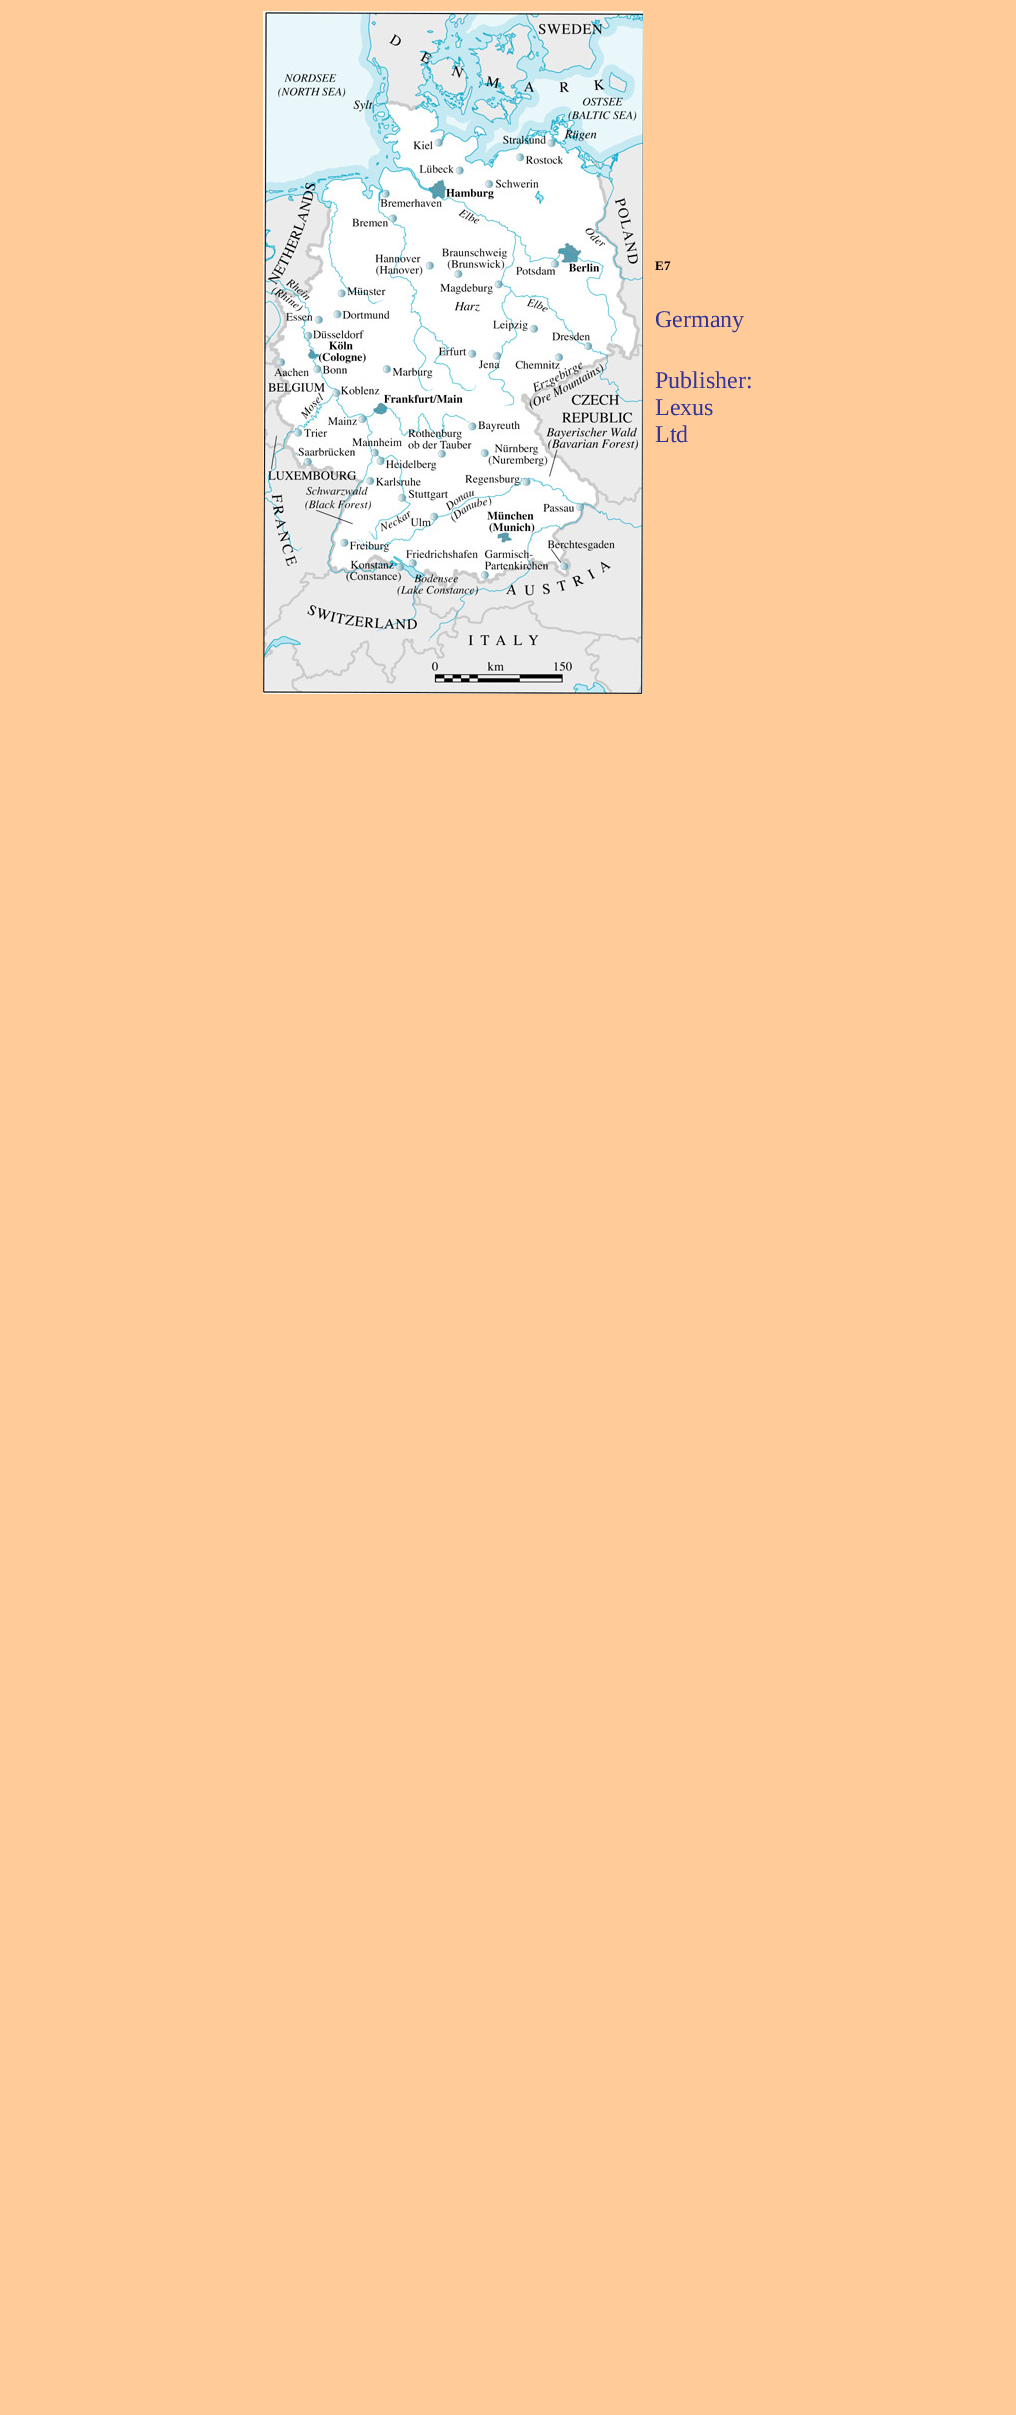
%!PS
<< /PageSize [1016 2415] >> setpagedevice
/C { dup -16 bitshift 255 div exch dup -8 bitshift 255 and 255 div exch 255 and 255 div setrgbcolor } def
/F { [ exch dup neg 0 0 3 -1 roll 0 0 ] selectfont } def
/T { moveto show } def
/R { rectfill } def
/I { 5 dict begin { /h /w /y /x /name } { exch def } forall
  gsave x y translate w h scale
  w h 8 [w 0 0 h 0 0] name (r) file false 3 colorimage grestore end } def
0 2415 translate 1 -1 scale
4 setmiterlimit
16#FFCC99 C
0 0 1016 2415 R
(1.rgb) 263 11 380 683 I
/LiberationSerif-Bold 13 F
16#000000 C
(E7) 655 270 T
/LiberationSerif-Regular 24 F
16#333399 C
(Germany) 655 327 T
(Publisher:) 655 388 T
(Lexus) 655 415 T
(Ltd) 655 442 T
showpage
